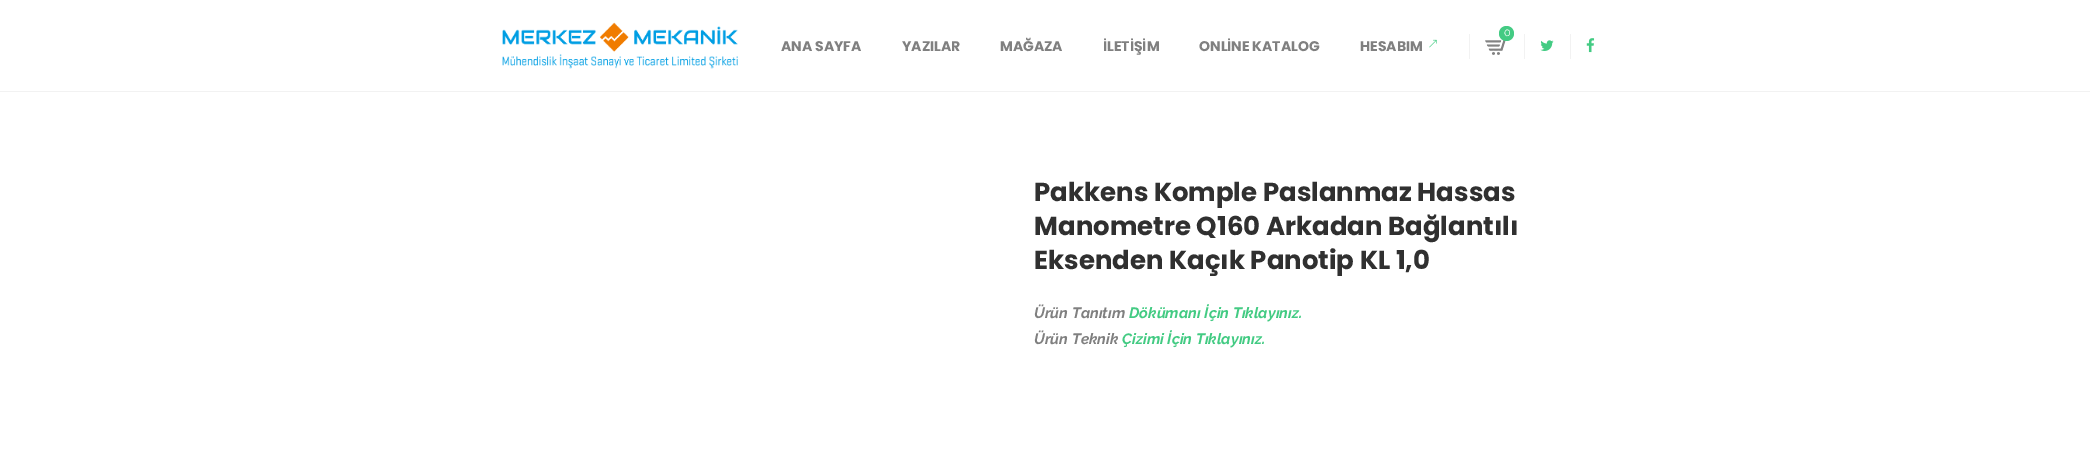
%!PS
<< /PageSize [2090 468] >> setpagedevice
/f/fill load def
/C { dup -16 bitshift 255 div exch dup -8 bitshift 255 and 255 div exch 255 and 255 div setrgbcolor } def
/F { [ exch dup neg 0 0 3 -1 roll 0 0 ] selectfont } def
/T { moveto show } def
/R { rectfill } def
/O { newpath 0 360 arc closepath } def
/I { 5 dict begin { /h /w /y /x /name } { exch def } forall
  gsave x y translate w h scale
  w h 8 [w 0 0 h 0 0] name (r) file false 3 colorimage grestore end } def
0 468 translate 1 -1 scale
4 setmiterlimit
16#FFFFFF C
0 0 2090 468 R
16#F2F2F2 C
0 91 2090 1 R
(1.rgb) 502 22 236 47 I
(2.rgb) 1485 40 23 15 I
16#43CB83 C
1506.5 33.5 7.5 O f
/Raleway-Regular 11 F
16#FFFFFF C
(0) 1504 36 T
16#F2F2F2 C
1469 34 1 25 R
1524 34 1 25 R
(3.rgb) 1540 40 14 11 I
1570 34 1 25 R
(4.rgb) 1586 38 9 15 I
/Poppins-Bold 14 F
16#808080 C
(ANA SAYFA) 781 51 T
(YAZILAR) 902 51 T
(MAĞAZA) 1000 51 T
(İLETİŞİM) 1103 51 T
(ONLİNE KATALOG) 1199 51 T
(HESABIM) 1360 51 T
(5.rgb) 1429 39 8 9 I
/Poppins-Bold 26 F
16#303030 C
(Pakkens Komple Paslanmaz Hassas) 1034 201 T
(Manometre Q160 Arkadan Bağlantılı) 1034 235 T
(Eksenden Kaçık Panotip KL 1,0) 1034 269 T
/Raleway-BoldItalic 15 F
16#808080 C
(Ürün Tanıtım) 1034 318 T
16#43CB83 C
(Dökümanı İçin Tıklayınız.) 1129 318 T
16#808080 C
(Ürün Teknik) 1034 344 T
16#43CB83 C
(Çizimi İçin Tıklayınız.) 1122 344 T
showpage
